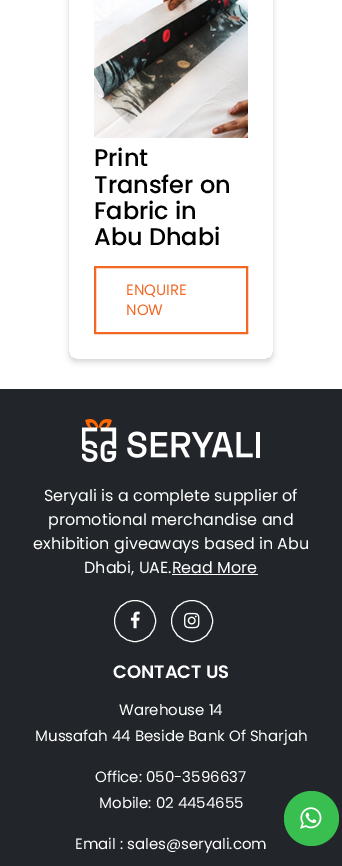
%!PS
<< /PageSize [342 866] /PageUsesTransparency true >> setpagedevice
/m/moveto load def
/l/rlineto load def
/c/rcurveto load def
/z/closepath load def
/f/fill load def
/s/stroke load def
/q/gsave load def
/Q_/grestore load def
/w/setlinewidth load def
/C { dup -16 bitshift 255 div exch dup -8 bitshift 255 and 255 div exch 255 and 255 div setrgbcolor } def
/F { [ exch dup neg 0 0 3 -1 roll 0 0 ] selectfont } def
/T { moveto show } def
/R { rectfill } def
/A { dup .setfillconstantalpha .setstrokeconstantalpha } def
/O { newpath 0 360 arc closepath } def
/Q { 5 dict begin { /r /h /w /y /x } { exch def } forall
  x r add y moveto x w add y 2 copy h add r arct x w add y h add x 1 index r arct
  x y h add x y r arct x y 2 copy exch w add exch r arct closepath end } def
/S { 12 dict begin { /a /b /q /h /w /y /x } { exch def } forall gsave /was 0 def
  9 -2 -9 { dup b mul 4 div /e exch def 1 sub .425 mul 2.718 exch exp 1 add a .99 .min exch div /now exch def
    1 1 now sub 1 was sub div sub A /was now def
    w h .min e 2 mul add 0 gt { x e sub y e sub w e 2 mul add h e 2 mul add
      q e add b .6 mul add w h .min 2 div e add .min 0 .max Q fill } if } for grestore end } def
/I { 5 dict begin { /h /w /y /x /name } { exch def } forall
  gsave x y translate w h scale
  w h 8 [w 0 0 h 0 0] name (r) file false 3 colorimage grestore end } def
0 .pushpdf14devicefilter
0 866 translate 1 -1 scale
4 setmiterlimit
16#FFFFFF C
0 0 342 866 R
q
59 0 m 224 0 l 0 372 l -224 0 l z 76 -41 m 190 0 l 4 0 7 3 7 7 c 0 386 l 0 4 -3 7 -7 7 c -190 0 l -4 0 -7 -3 -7 -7 c 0 -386 l 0 -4 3 -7 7 -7 c z eoclip newpath
16#000000 C
69 -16 204 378 7 3 .16 S
Q_
(1.rgb) 94 0 154 138 I
/Poppins-Medium 24 F
16#010101 C
(Print) 94 166 T
(Transfer on) 94 193 T
(Fabric in) 94 219 T
(Abu Dhabi) 94 245 T
16#F26722 C
2 w
95 267 152 66 rectstroke
/Poppins-Regular 15 F
(ENQUIRE) 126 295 T
(NOW) 126 315 T
16#222529 C
0 389 342 477 R
(2.rgb) 82 419 178 43 I
/Poppins-Regular 16 F
16#FFFFFF C
(Seryali is a complete supplier of) 44 501 T
(promotional merchandise and) 48 525 T
(exhibition giveaways based in Abu) 33 549 T
(Dhabi, UAE.Read More) 84 573 T
172 574 86 1 R
1 w
135 621 20.5 O s
(3.rgb) 130 611 10 18 I
192 621 20.5 O s
(4.rgb) 184 612 16 17 I
/Poppins-SemiBold 18 F
(CONTACT US) 113 678 T
/Poppins-Regular 15 F
(Warehouse 14) 119 715 T
(Mussafah 44 Beside Bank Of Sharjah) 35 741 T
(Office: 050-3596637) 95 782 T
(Mobile: 02 4454655) 99 808 T
(Email : sales@seryali.com) 75 849 T
16#39BE50 C
311.5 818.5 27.5 O f
(5.rgb) 300 807 22 22 I
.poppdf14devicefilter showpage
